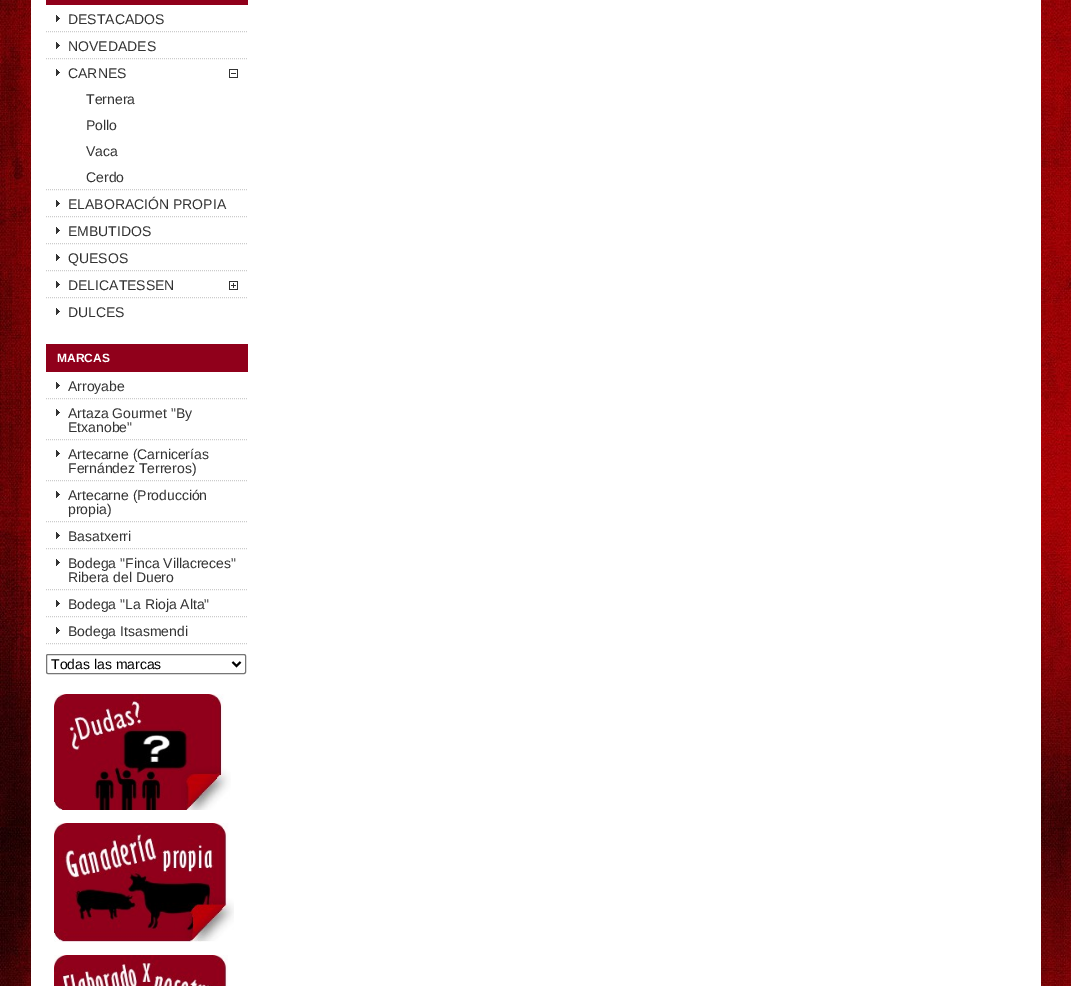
%!PS
<< /PageSize [1071 986] >> setpagedevice
/m/moveto load def
/l/rlineto load def
/s/stroke load def
/w/setlinewidth load def
/C { dup -16 bitshift 255 div exch dup -8 bitshift 255 and 255 div exch 255 and 255 div setrgbcolor } def
/F { [ exch dup neg 0 0 3 -1 roll 0 0 ] selectfont } def
/T { moveto show } def
/R { rectfill } def
/Q { 5 dict begin { /r /h /w /y /x } { exch def } forall
  x r add y moveto x w add y 2 copy h add r arct x w add y h add x 1 index r arct
  x y h add x y r arct x y 2 copy exch w add exch r arct closepath end } def
/I { 5 dict begin { /h /w /y /x /name } { exch def } forall
  gsave x y translate w h scale
  w h 8 [w 0 0 h 0 0] name (r) file false 3 colorimage grestore end } def
0 986 translate 1 -1 scale
4 setmiterlimit
16#FFFFFF C
0 0 1071 986 R
(1.rgb) 0 0 1071 986 I
31 0 1010 986 R
16#90001B C
46 0 202 5 R
16#CCCCCC C
[1 1] 0 setdash
46 31.5 m 202 0 l s
(2.rgb) 56 15 4 7 I
/LiberationSans-Regular 14 F
16#333333 C
(DESTACADOS) 68 24 T
16#CCCCCC C
46 58.5 m 202 0 l s
(2.rgb) 56 42 4 7 I
16#333333 C
(NOVEDADES) 68 51 T
16#CCCCCC C
46 189.5 m 202 0 l s
(2.rgb) 56 69 4 7 I
16#333333 C
(CARNES) 68 78 T
(3.rgb) 229 69 9 9 I
(Ternera) 86 104 T
(Pollo) 86 130 T
(Vaca) 86 156 T
(Cerdo) 86 182 T
16#CCCCCC C
46 216.5 m 202 0 l s
(2.rgb) 56 200 4 7 I
16#333333 C
(ELABORACIÓN PROPIA) 68 209 T
16#CCCCCC C
46 243.5 m 202 0 l s
(2.rgb) 56 227 4 7 I
16#333333 C
(EMBUTIDOS) 68 236 T
16#CCCCCC C
46 270.5 m 202 0 l s
(2.rgb) 56 254 4 7 I
16#333333 C
(QUESOS) 68 263 T
16#CCCCCC C
46 297.5 m 202 0 l s
(2.rgb) 56 281 4 7 I
16#333333 C
(DELICATESSEN) 68 290 T
(4.rgb) 229 281 9 9 I
(2.rgb) 56 308 4 7 I
(DULCES) 68 317 T
16#90001B C
46 344 202 28 R
/LiberationSans-Bold 12 F
16#FFFFFF C
(MARCAS) 57 362 T
16#CCCCCC C
46 398.5 m 202 0 l s
(2.rgb) 56 382 4 7 I
/LiberationSans-Regular 14 F
16#333333 C
(Arroyabe) 68 391 T
16#CCCCCC C
46 439.5 m 202 0 l s
(2.rgb) 56 409 4 7 I
16#333333 C
(Artaza Gourmet "By) 68 418 T
(Etxanobe") 68 432 T
16#CCCCCC C
46 480.5 m 202 0 l s
(2.rgb) 56 450 4 7 I
16#333333 C
(Artecarne \(Carnicerías) 68 459 T
(Fernández Terreros\)) 68 473 T
16#CCCCCC C
46 521.5 m 202 0 l s
(2.rgb) 56 491 4 7 I
16#333333 C
(Artecarne \(Producción) 68 500 T
(propia\)) 68 514 T
16#CCCCCC C
46 548.5 m 202 0 l s
(2.rgb) 56 532 4 7 I
16#333333 C
(Basatxerri) 68 541 T
16#CCCCCC C
46 589.5 m 202 0 l s
(2.rgb) 56 559 4 7 I
16#333333 C
(Bodega "Finca Villacreces") 68 568 T
(Ribera del Duero) 68 582 T
16#CCCCCC C
46 616.5 m 202 0 l s
(2.rgb) 56 600 4 7 I
16#333333 C
(Bodega "La Rioja Alta") 68 609 T
16#CCCCCC C
46 643.5 m 202 0 l s
(2.rgb) 56 627 4 7 I
16#333333 C
(Bodega Itsasmendi) 68 636 T
16#767676 C
[] 0 setdash
46.5 654.5 199 19 1.5 Q s
16#000000 C
2 w
232.5 662 m 4 4 l 4 -4 l s
(Todas las marcas) 51 669 T
(5.rgb) 54 694 177 116 I
(6.rgb) 54 823 180 119 I
(7.rgb) 54 955 174 31 I
showpage
